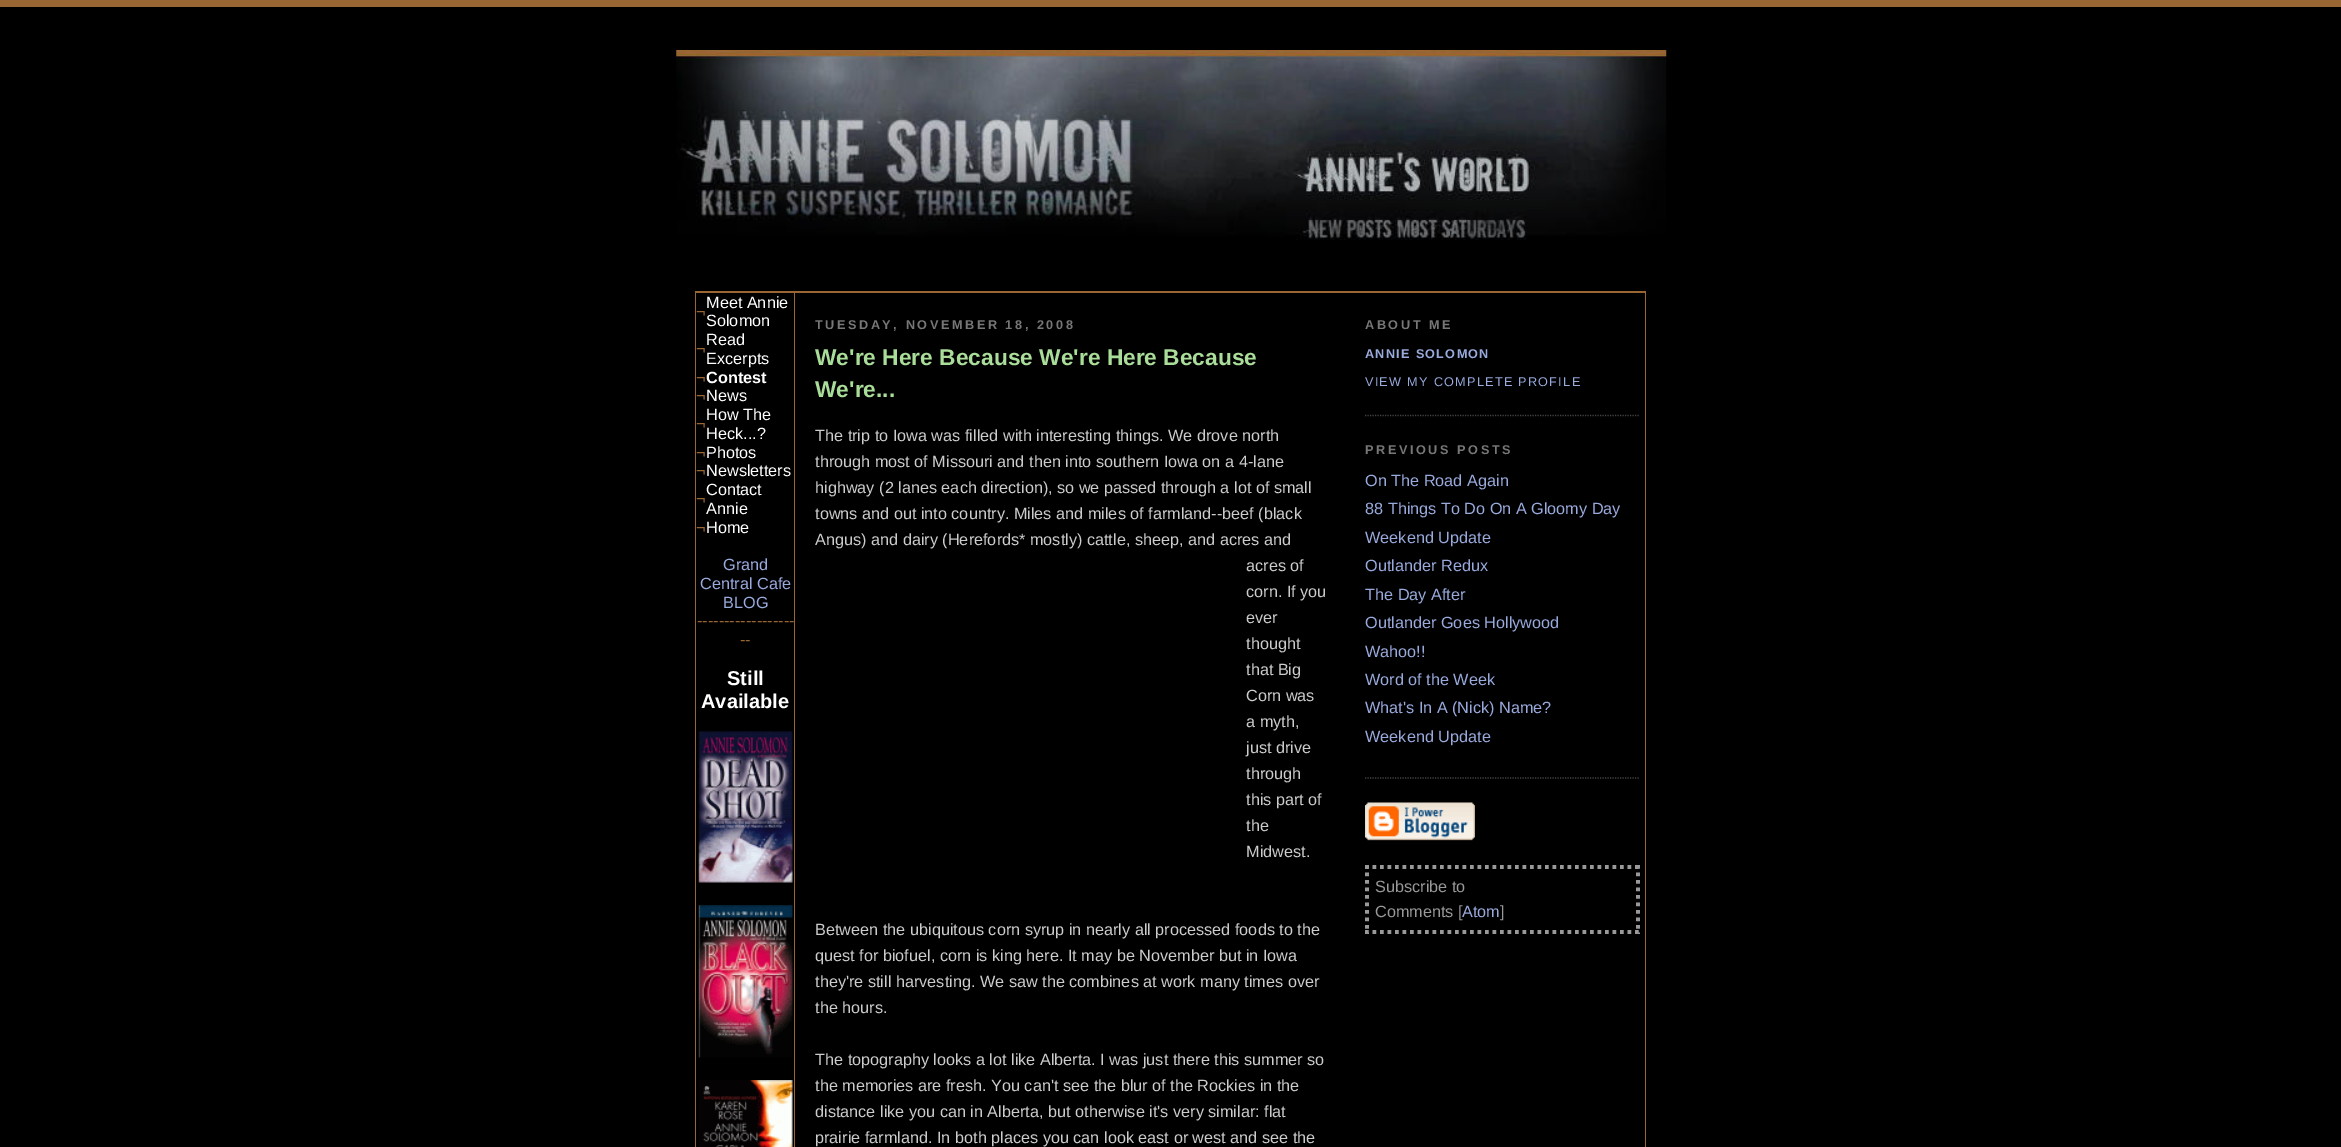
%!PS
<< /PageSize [2341 1147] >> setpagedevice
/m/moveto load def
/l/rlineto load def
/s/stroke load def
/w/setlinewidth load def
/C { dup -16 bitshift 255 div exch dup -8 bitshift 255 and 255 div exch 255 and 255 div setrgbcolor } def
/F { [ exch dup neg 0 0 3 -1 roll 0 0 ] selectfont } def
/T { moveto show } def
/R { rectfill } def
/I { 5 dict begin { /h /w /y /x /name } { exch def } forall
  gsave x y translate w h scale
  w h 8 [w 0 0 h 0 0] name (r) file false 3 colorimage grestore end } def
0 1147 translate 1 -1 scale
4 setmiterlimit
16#000000 C
0 0 2341 1147 R
16#986633 C
0 0 2341 7 R
(1.rgb) 676 50 991 190 I
16#996633 C
695 291 951 856 R
16#000000 C
696 293 949 854 R
/LiberationSans-Regular 16.25 F
16#996633 C
(¬) 696 317 T
16#FFFFFF C
(Meet Annie) 706 308 T
(Solomon) 706 326 T
16#996633 C
(¬) 696 354 T
16#FFFFFF C
(Read) 706 345 T
(Excerpts) 706 364 T
16#996633 C
(¬) 696 383 T
/LiberationSans-Bold 16.25 F
16#FFFFFF C
(Contest) 706 383 T
/LiberationSans-Regular 16.25 F
16#996633 C
(¬) 696 401 T
16#FFFFFF C
(News) 706 401 T
16#996633 C
(¬) 696 429 T
16#FFFFFF C
(How The) 706 420 T
(Heck...?) 706 439 T
16#996633 C
(¬) 696 458 T
16#FFFFFF C
(Photos) 706 458 T
16#996633 C
(¬) 696 476 T
16#FFFFFF C
(Newsletters) 706 476 T
16#996633 C
(¬) 696 504 T
16#FFFFFF C
(Contact) 706 495 T
(Annie) 706 514 T
16#996633 C
(¬) 696 533 T
16#FFFFFF C
(Home) 706 533 T
16#99AADD C
(Grand) 723 570 T
(Central Cafe) 700 589 T
(BLOG) 723 608 T
16#996633 C
(------------------) 697 626 T
(--) 740 645 T
/LiberationSans-Bold 20 F
16#FFFFFF C
(Still) 727 685 T
(Available) 701 708 T
(2.rgb) 698 731 95 152 I
(3.rgb) 698 905 95 153 I
(4.rgb) 699 1080 94 67 I
16#996633 C
794 293 1 854 R
/LiberationSans-Bold 12.7 F
16#777777 C
815 329 m 2.55 0 (TUESDAY, NOVEMBER 18, 2008) ashow
/LiberationSans-Bold 22.75 F
16#AADD99 C
(We're Here Because We're Here Because) 815 365 T
(We're...) 815 397 T
/LiberationSans-Regular 16.25 F
16#CCCCCC C
(The trip to Iowa was filled with interesting things. We drove north) 815 441 T
(through most of Missouri and then into southern Iowa on a 4-lane) 815 467 T
(highway \(2 lanes each direction\), so we passed through a lot of small) 815 493 T
(towns and out into country. Miles and miles of farmland--beef \(black) 815 519 T
(Angus\) and dairy \(Herefords* mostly\) cattle, sheep, and acres and) 815 545 T
(acres of) 1246 571 T
(corn. If you) 1246 597 T
(ever) 1246 623 T
(thought) 1246 649 T
(that Big) 1246 675 T
(Corn was) 1246 701 T
(a myth,) 1246 727 T
(just drive) 1246 753 T
(through) 1246 779 T
(this part of) 1246 805 T
(the) 1246 831 T
(Midwest.) 1246 857 T
(Between the ubiquitous corn syrup in nearly all processed foods to the) 815 935 T
(quest for biofuel, corn is king here. It may be November but in Iowa) 815 961 T
(they're still harvesting. We saw the combines at work many times over) 815 987 T
(the hours.) 815 1013 T
(The topography looks a lot like Alberta. I was just there this summer so) 815 1065 T
(the memories are fresh. You can't see the blur of the Rockies in the) 815 1091 T
(distance like you can in Alberta, but otherwise it's very similar: flat) 815 1117 T
(prairie farmland. In both places you can look east or west and see the) 815 1143 T
16#444444 C
1.2 w
[1.25 1.25] 0 setdash
1365 415.5 m 275 0 l s
/LiberationSans-Bold 12.7 F
16#777777 C
1365 329 m 2.55 0 (ABOUT ME) ashow
16#99AADD C
1365 358 m 1.25 0 (ANNIE SOLOMON) ashow
/LiberationSans-Regular 12.7 F
1365 386 m 1.25 0 (VIEW MY COMPLETE PROFILE) ashow
/LiberationSans-Bold 12.7 F
16#777777 C
1365 454 m 2.55 0 (PREVIOUS POSTS) ashow
16#444444 C
1365 778 m 275 0 l s
/LiberationSans-Regular 16.25 F
16#99AADD C
(On The Road Again) 1365 486 T
(88 Things To Do On A Gloomy Day) 1365 514 T
(Weekend Update) 1365 543 T
(Outlander Redux) 1365 571 T
(The Day After) 1365 600 T
(Outlander Goes Hollywood) 1365 628 T
(Wahoo!!) 1365 657 T
(Word of the Week) 1365 685 T
(What's In A \(Nick\) Name?) 1365 713 T
(Weekend Update) 1365 742 T
(5.rgb) 1365 802 110 39 I
16#999999 C
3.8 w
[3.75 3.75] 0 setdash
1365 867 m 275 0 l s
1638 865 m 0 69 l s
1365 932 m 275 0 l s
1367 865 m 0 69 l s
(Subscribe to) 1375 892 T
(Comments [) 1375 917 T
16#99AADD C
(Atom) 1462 917 T
16#999999 C
(]) 1500 917 T
showpage
